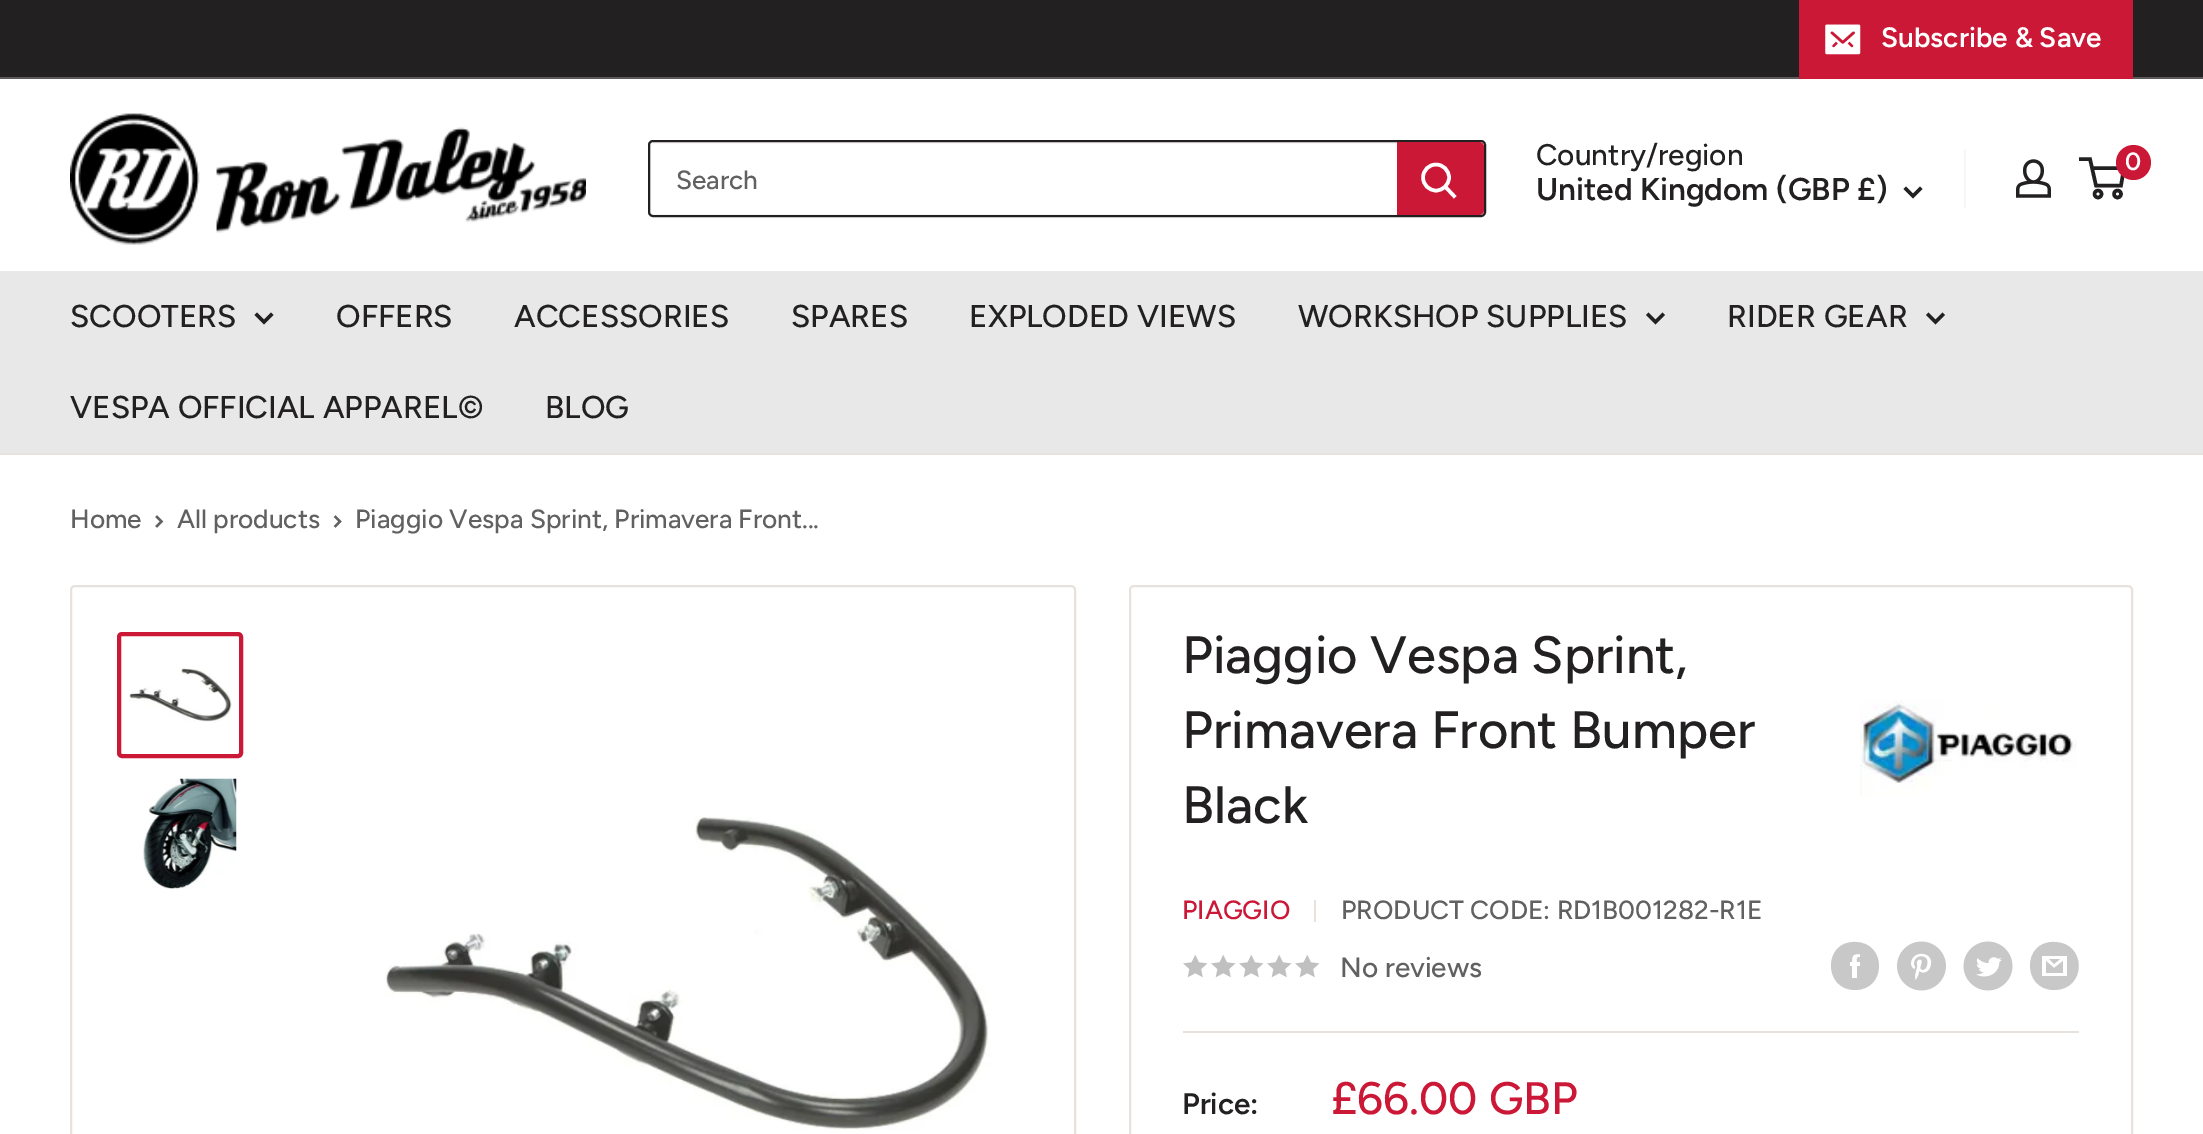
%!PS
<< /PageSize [2203 1134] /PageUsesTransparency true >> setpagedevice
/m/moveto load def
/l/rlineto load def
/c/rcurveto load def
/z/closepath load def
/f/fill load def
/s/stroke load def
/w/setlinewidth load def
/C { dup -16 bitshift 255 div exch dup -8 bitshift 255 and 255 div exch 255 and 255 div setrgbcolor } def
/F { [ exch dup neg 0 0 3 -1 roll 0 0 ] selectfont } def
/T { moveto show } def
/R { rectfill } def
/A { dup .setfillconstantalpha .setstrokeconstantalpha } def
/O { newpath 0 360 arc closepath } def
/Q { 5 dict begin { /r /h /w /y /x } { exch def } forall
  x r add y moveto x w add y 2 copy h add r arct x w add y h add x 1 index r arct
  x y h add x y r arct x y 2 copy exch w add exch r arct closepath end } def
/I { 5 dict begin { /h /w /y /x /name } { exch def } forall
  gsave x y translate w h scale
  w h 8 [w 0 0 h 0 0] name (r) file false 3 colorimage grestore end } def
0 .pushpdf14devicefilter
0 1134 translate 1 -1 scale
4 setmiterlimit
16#FFFFFF C
0 0 2203 1134 R
16#222021 C
0 0 2203 77 R
16#5E5A59 C
0 77 2203 2 R
16#CB1836 C
1799 0 334 79 R
(1.rgb) 1825 24 36 31 I
/Figtree-SemiBold 28 F
16#FFFFFF C
(Subscribe & Save) 1881 47 T
(2.rgb) 70 113 516 132 I
16#F8F6F5 C
650 214 m 3 1 l 827 0 l 2 0 4 -2 4 -4 c 0 -66 l -2 -3 l 0 57 l 0 6 2 15 -3 15 c z f
0.3 A
16#E9E2DD C
654 144 m 830 0 l -1 -1 -2 -2 -4 -2 c -827 0 l -2 0 -4 2 -4 4 c 0 65 l 0 2 1 3 2 4 c 0 -69 l 0 -1 2 -2 3 -2 c z f
1 A
16#222021 C
2 w
649 141 836 75 4 Q s
/Figtree-Medium 26.25 F
16#616161 C
(Search) 676 189 T
16#CB1836 C
1397 142 m 82 0 l 3 0 5 2 5 5 c 0 63 l 0 3 -2 5 -5 5 c -82 0 l z f
16#FFFFFF C
3.5 w
2 setlinecap
1454 196 m -8.5 -9 l s
0 setlinecap
1436 177.5 13 O s
/Figtree-Medium 29.75 F
16#222021 C
(Country/region) 1536 165 T
/Figtree-SemiBold 31.5 F
(United Kingdom \(GBP £\)) 1536 200 T
2 setlinecap
1920 189 m -7 7 l -7 -7 l s
16#F8F6F5 C
1964 149 2 59 R
(3.rgb) 2016 159 35 39 I
16#222021 C
0 setlinecap
2098 194 3.5 O s
2117.5 194 3.5 O s
2092 168 m 32 0 l -3 17.5 l -25 0 l -6 -26.5 l -11 0 l s
16#CB1836 C
2133.5 162.5 17.5 O f
/Figtree-SemiBold 25 F
16#FFFFFF C
(0) 2125 170 T
16#E8E8E8 C
0 271 2203 182 R
16#E7E2DE C
0 453 2203 2 R
/Figtree-Medium 31.5 F
16#222021 C
(SCOOTERS) 70 327 T
2 setlinecap
271 315 m -7 7 l -7 -7 l s
(OFFERS) 336 327 T
(ACCESSORIES) 514 327 T
(SPARES) 791 327 T
(EXPLODED VIEWS) 969 327 T
(WORKSHOP SUPPLIES) 1298 327 T
1662.5 315 m -7 7 l -7 -7 l s
(RIDER GEAR) 1727 327 T
1942.5 315 m -7 7 l -7 -7 l s
(VESPA OFFICIAL APPAREL©) 70 418 T
(BLOG) 545 418 T
/Figtree-Medium 26.25 F
16#616161 C
(Home) 70 528 T
2.3 w
157 517 m 4.5 4.5 l -4.5 4.5 l s
(All products) 177 528 T
335.5 517 m 4.5 4.5 l -4.5 4.5 l s
(Piaggio Vespa Sprint, Primavera Front...) 355 528 T
16#E7E2DE C
2 w
0 setlinecap
71 586 1004 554 4 Q s
16#CB1836 C
4 w
119 634 122 122 3 Q s
(4.rgb) 129 668 103 54 I
(5.rgb) 142 778 95 111 I
(6.rgb) 384 817 606 313 I
16#E7E2DE C
2 w
1130 586 1002 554 4 Q s
/Figtree-Medium 52.5 F
16#222021 C
(Piaggio Vespa Sprint,) 1182 673 T
(Primavera Front Bumper) 1182 748 T
(Black) 1182 823 T
(7.rgb) 1860 700 217 96 I
/Figtree-Medium 26.25 F
16#CB1836 C
(PIAGGIO) 1182 919 T
16#E7E2DE C
1314 900 2 22 R
16#616161 C
(PRODUCT CODE: RD1B001282-R1E) 1341 919 T
(8.rgb) 1183 954 25 24 I
(8.rgb) 1211 954 25 24 I
(8.rgb) 1239 954 25 24 I
(8.rgb) 1267 954 25 24 I
(8.rgb) 1295 954 25 24 I
/Figtree-Medium 28 F
(No reviews) 1340 977 T
16#C8C8C8 C
1855 990 m -32 0 -32 -49 0 -48 c 32 0 32 48 0 48 c z 1860 962 m -3 0 l 0 -3 -1 -5 3 -5 c 0 -3 l -7 0 -8 1 -8 8 c -2 0 l 0 4 l 2 0 l 0 12 l 5 0 l 0 -12 l 3 0 l z eofill
(9.rgb) 1897 941 49 50 I
(10.rgb) 1963 941 50 50 I
2054 990 m -32 0 -32 -49 0 -48 c 33 0 33 48 0 48 c z 2049 959 m 11 0 l -6 5 l z 2063 961 m 0 12 l -17 0 l 0 -12 l 8 7 l z 2067 956 m -25 0 l 0 20 l 25 0 l z f
16#E7E2DE C
1183 1031 896 2 R
/Figtree-SemiBold 29.75 F
16#222021 C
(Price:) 1182 1114 T
/Figtree-Medium 45.5 F
16#CB1836 C
(£66.00 GBP) 1331 1114 T
.poppdf14devicefilter showpage
